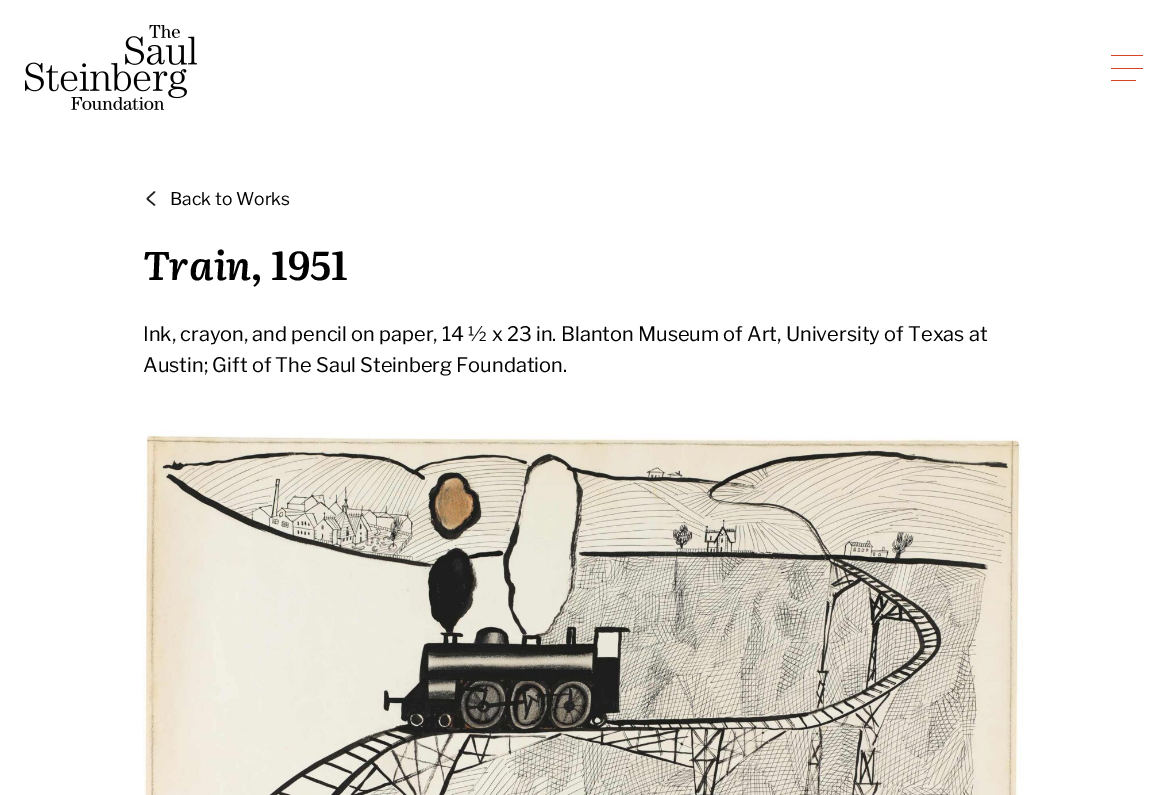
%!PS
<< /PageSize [1167 795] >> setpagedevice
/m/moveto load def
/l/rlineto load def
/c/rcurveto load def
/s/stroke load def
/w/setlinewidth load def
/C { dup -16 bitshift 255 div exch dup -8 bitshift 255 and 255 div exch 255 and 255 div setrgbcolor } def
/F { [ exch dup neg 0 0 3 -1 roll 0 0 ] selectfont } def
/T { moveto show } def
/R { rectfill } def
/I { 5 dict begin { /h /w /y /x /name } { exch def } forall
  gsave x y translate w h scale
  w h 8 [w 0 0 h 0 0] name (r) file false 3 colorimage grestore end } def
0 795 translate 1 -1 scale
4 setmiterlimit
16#FFFFFF C
0 0 1167 795 R
(1.rgb) 25 25 172 85 I
16#D94523 C
1111 68 32 1 R
1111 55 32 1 R
1111 80 25 1 R
16#212121 C
1.5 w
1 setlinecap
1 setlinejoin
154.5 205 m -6 -5 l -1.5 -1.5 -1.5 -1 0 -2.5 c 6 -5.5 l s
/LibreFranklin-Thin 17.5 F
16#000000 C
(Back to Works) 170 205 T
/Literata-SemiBoldItalic 40 F
(Train) 143 280 T
/Literata-SemiBold 40 F
(, 1951) 250 280 T
/LibreFranklin-Thin 20 F
(Ink, crayon, and pencil on paper, 14 ½ x 23 in. Blanton Museum of Art, University of Texas at) 143 341 T
(Austin; Gift of The Saul Steinberg Foundation.) 143 372 T
(2.rgb) 142 431 883 364 I
showpage
